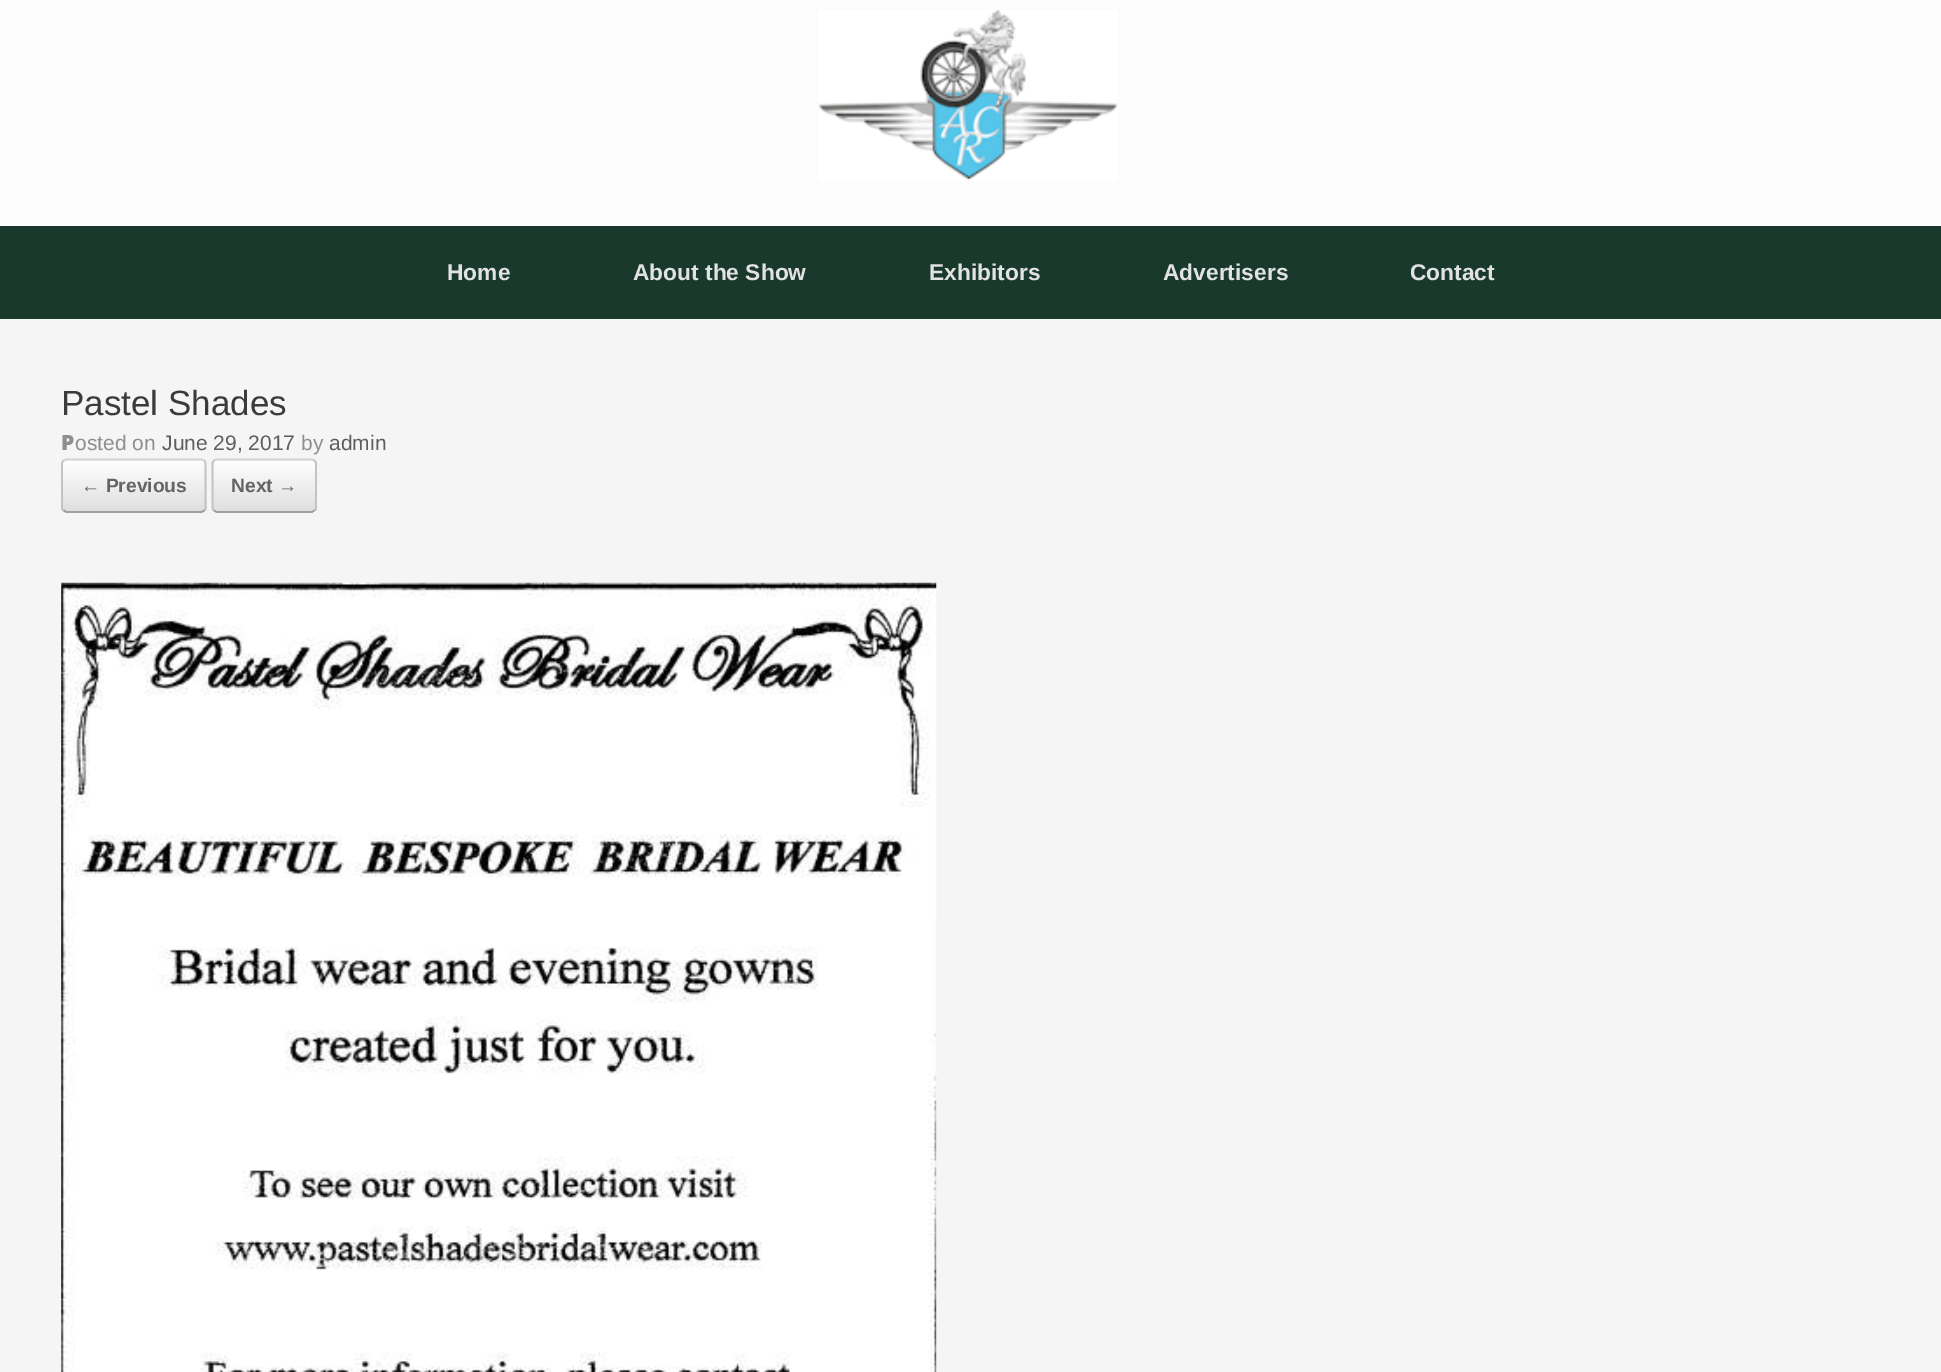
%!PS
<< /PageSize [1941 1372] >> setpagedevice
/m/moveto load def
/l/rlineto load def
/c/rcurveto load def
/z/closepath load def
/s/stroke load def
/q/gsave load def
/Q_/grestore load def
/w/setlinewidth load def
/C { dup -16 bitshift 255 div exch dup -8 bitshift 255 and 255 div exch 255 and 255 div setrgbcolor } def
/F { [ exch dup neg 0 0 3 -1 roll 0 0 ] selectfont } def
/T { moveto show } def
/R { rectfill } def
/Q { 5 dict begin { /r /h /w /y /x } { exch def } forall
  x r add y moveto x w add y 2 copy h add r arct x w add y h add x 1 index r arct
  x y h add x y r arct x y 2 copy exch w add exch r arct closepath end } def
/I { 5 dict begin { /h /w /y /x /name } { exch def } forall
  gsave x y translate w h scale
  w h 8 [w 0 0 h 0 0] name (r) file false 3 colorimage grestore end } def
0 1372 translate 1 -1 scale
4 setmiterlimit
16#FCFCFC C
0 0 1941 1372 R
(1.rgb) 818 10 300 171 I
16#18392B C
0 226 1941 93 R
/LiberationSans-Bold 22.75 F
16#E2E2E2 C
(Home) 447 280 T
(About the Show) 633 280 T
(Exhibitors) 929 280 T
(Advertisers) 1163 280 T
(Contact) 1410 280 T
16#F5F5F5 C
0 319 1941 1053 R
/LiberationSans-Regular 35 F
16#3B3B3B C
(Pastel Shades) 61 415 T
/NotoSans-Black 21 F
16#8F8F8F C
(P) 61 450 T
/LiberationSans-Regular 21 F
(osted on) 75 450 T
16#5E5E5E C
(June 29, 2017) 162 450 T
16#8F8F8F C
(by) 301 450 T
16#5E5E5E C
(admin) 329 450 T
q
61 459 146 54 5 Q clip newpath
q 61 460 m 146 0 l 0 51 l -146 0 l z clip newpath
<< /ShadingType 2 /ColorSpace /DeviceRGB /Coords [63 511 63 460] /Extend [true true] /Function << /FunctionType 2 /Domain [0 1] /C0 [.875 .875 .875] /C1 [1 1 1] /N 1 >> >> shfill Q_
q 61 511 m 146 0 l 0 2 l -146 0 l z clip newpath
<< /ShadingType 2 /ColorSpace /DeviceRGB /Coords [63 562 63 511] /Extend [true true] /Function << /FunctionType 2 /Domain [0 1] /C0 [.875 .875 .875] /C1 [1 1 1] /N 1 >> >> shfill Q_
Q_
16#D2D2D2 C
1.8 w
63.5 460.5 m 3 -1 l 135 0 l 3 1 l s
16#C3C3C3 C
204.5 460.5 m .5 1 1 2 1 3.5 c 0 43.5 l 0 1 -.5 2.5 -1 3 c s
16#9F9F9F C
204.5 510.5 m -3 1.5 l -112.5 0 l -22.5 0 l -3 -1.5 l s
16#C3C3C3 C
63.5 510.5 m -1 -.5 -1.5 -2 -1.5 -3 c 0 -43.5 l 0 -1.5 .5 -2.5 1.5 -3.5 c s
/LiberationSans-Bold 19.25 F
16#646464 C
(← Previous) 81 492 T
q
212 459 105 54 5 Q clip newpath
q 212 460 m 105 0 l 0 51 l -105 0 l z clip newpath
<< /ShadingType 2 /ColorSpace /DeviceRGB /Coords [214 511 214 460] /Extend [true true] /Function << /FunctionType 2 /Domain [0 1] /C0 [.875 .875 .875] /C1 [1 1 1] /N 1 >> >> shfill Q_
q 212 511 m 105 0 l 0 2 l -105 0 l z clip newpath
<< /ShadingType 2 /ColorSpace /DeviceRGB /Coords [214 562 214 511] /Extend [true true] /Function << /FunctionType 2 /Domain [0 1] /C0 [.875 .875 .875] /C1 [1 1 1] /N 1 >> >> shfill Q_
Q_
16#D2D2D2 C
214 460.5 m 2.5 -1 l 95.5 0 l 2.5 1 l s
16#C3C3C3 C
314.5 460.5 m 1 1 1.5 2 1.5 3.5 c 0 43.5 l 0 1 -.5 2.5 -1.5 3 c s
16#9F9F9F C
314.5 510.5 m -2.5 1.5 l -95.5 0 l -2.5 -1.5 l s
16#C3C3C3 C
214 510.5 m -1 -.5 -1.5 -2 -1.5 -3 c 0 -43.5 l 0 -1.5 .5 -2.5 1.5 -3.5 c s
16#646464 C
(Next →) 231 492 T
(2.rgb) 61 582 876 790 I
showpage
